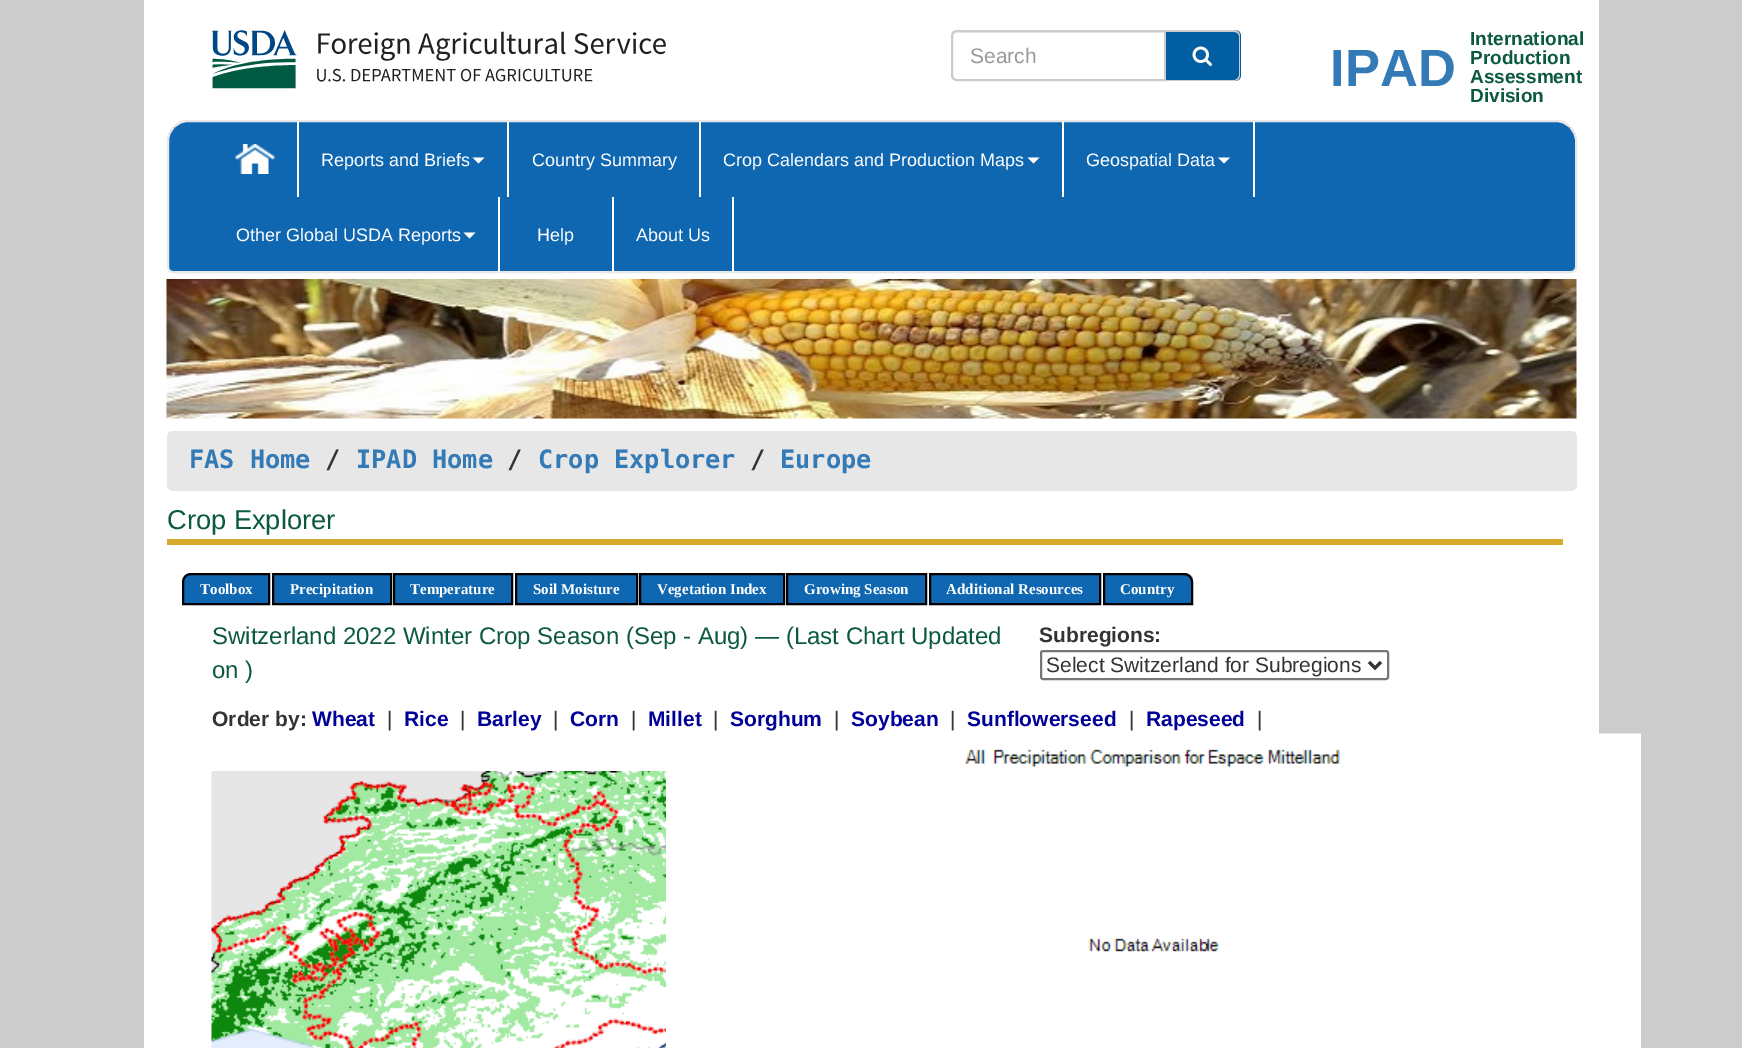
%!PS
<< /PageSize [1742 1048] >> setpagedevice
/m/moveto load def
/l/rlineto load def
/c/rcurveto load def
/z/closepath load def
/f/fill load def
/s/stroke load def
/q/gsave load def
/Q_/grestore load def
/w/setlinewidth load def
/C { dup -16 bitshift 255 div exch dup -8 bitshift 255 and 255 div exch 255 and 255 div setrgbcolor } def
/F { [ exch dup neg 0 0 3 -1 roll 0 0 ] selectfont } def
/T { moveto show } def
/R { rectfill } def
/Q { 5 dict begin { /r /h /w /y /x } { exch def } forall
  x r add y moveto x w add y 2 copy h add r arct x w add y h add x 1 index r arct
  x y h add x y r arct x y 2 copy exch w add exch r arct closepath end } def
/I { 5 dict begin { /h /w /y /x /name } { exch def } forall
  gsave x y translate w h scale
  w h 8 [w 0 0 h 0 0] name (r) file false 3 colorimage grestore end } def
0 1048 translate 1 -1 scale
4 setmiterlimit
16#CCCCCC C
0 0 1742 1048 R
16#FFFFFF C
144 0 1455 1048 R
(1.rgb) 212 30 454 59 I
16#ECECEC C
957 33 m 207 0 l 0 -1 l -206 0 l -2 0 -3 1 -4 2 c z f
16#CCCCCC C
2 w
957 31 m 208 0 l 0 49 l -208 0 l -3 0 -5 -2 -5 -5 c 0 -39 l 0 -3 2 -5 5 -5 c z s
/LiberationSans-Regular 21 F
16#999999 C
(Search) 970 63 T
16#005EA2 C
1166 30 m 69 0 l 3.5 0 6 2.5 6 6 c 0 39 l 0 3.5 -2.5 6 -6 6 c -69 0 l z f
16#CCCCCC C
1166 30 m 68 0 l 4 0 6 3 6 6 c 0 39 l 0 3 -2 6 -6 6 c -68 0 l z 1166 32 m 68 0 l 3 0 5 2 5 4 c 0 39 l 0 2 -2 5 -5 5 c -68 0 l z eofill
(2.rgb) 1192 46 20 20 I
/LiberationSans-Bold 52.5 F
16#337AB7 C
(IPAD) 1330 86 T
/LiberationSans-Bold 19 F
16#0B5941 C
(International) 1470 45 T
(Production) 1470 64 T
(Assessment) 1470 83 T
(Division) 1470 102 T
16#0E67B0 C
188 121 m 1368 0 l 11 0 20 9 20 20 c 0 126 l 0 3 -2 5 -5 5 c -1398 0 l -3 0 -5 -2 -5 -5 c 0 -126 l 0 -11 9 -20 20 -20 c z q f Q_
16#E7E7E7 C
s
16#FFFFFF C
297 122 2 75 R
(3.rgb) 235 144 40 30 I
507 122 2 75 R
/LiberationSans-Regular 18 F
(Reports and Briefs) 321 166 T
472.5 157.5 m 12 0 l -6 6 l z f
699 122 2 75 R
(Country Summary) 532 166 T
1062 122 2 75 R
(Crop Calendars and Production Maps) 723 166 T
1027.5 157.5 m 12 0 l -6 6 l z f
1253 122 2 75 R
(Geospatial Data) 1086 166 T
1218 157.5 m 12 0 l -6 6 l z f
498 197 2 75 R
(Other Global USDA Reports) 236 241 T
463.5 232.5 m 12 0 l -6 6 l z f
612 197 2 75 R
(Help) 537 241 T
732 197 2 75 R
(About Us) 636 241 T
(4.rgb) 166 279 1411 140 I
16#E7E7E7 C
167 431 1410 60 6 Q f
/DejaVuSansMono-Bold 25.25 F
16#337AB7 C
(FAS Home) 189 468 T
16#333333 C
(/) 325 468 T
16#337AB7 C
(IPAD Home) 356 468 T
16#333333 C
(/) 507 468 T
16#337AB7 C
(Crop Explorer) 538 468 T
16#333333 C
(/) 750 468 T
16#337AB7 C
(Europe) 780 468 T
16#D8AB2D C
167 539 1396 6 R
/LiberationSans-Regular 27.25 F
16#0B5941 C
(Crop Explorer) 167 529 T
16#0E67B0 C
191 574 m 78 0 l 0 30 l -86 0 l 0 -22 l 0 -4.5 3.5 -8 8 -8 c z q f Q_
16#000000 C
s
/LiberationSerif-Bold 15 F
16#FFFFFF C
(Toolbox) 200 594 T
16#0E67B0 C
273 574 m 118 0 l 0 30 l -118 0 l z q f Q_
16#000000 C
s
16#FFFFFF C
(Precipitation) 290 594 T
16#0E67B0 C
394 574 m 118 0 l 0 30 l -118 0 l z q f Q_
16#000000 C
s
16#FFFFFF C
(Temperature) 410 594 T
16#0E67B0 C
516 574 m 121 0 l 0 30 l -121 0 l z q f Q_
16#000000 C
s
16#FFFFFF C
(Soil Moisture) 533 594 T
16#0E67B0 C
640 574 m 144 0 l 0 30 l -144 0 l z q f Q_
16#000000 C
s
16#FFFFFF C
(Vegetation Index) 657 594 T
16#0E67B0 C
787 574 m 139 0 l 0 30 l -139 0 l z q f Q_
16#000000 C
s
16#FFFFFF C
(Growing Season) 804 594 T
16#0E67B0 C
930 574 m 170 0 l 0 30 l -170 0 l z q f Q_
16#000000 C
s
16#FFFFFF C
(Additional Resources) 946 594 T
16#C8C8C8 C
1103 573 m 82 0 l 5 0 9 4 9 9 c 0 23 l -91 0 l z f
16#FFFFFF C
1193 578 1 27 R
16#0E67B0 C
1104 574 m 80 0 l 4.5 0 8 3.5 8 8 c 0 22 l -88 0 l z q f Q_
16#000000 C
s
16#FFFFFF C
(Country) 1120 594 T
/LiberationSans-Regular 24 F
16#0B5941 C
(Switzerland 2022 Winter Crop Season \(Sep - Aug\) — \(Last Chart Updated) 212 644 T
(on \)) 212 678 T
/LiberationSans-Bold 21 F
16#333333 C
(Subregions:) 1039 642 T
16#767676 C
1041 651 347 28 2 Q s
16#333333 C
3 w
1369 662 m 6 6 l 6 -6 l s
/LiberationSans-Regular 21 F
(Select Switzerland for Subregions) 1046 672 T
/LiberationSans-Bold 21 F
(Order by:) 212 726 T
16#000099 C
(Wheat) 312 726 T
/LiberationSans-Regular 21 F
16#333333 C
(|) 387 726 T
/LiberationSans-Bold 21 F
16#000099 C
(Rice) 404 726 T
/LiberationSans-Regular 21 F
16#333333 C
(|) 460 726 T
/LiberationSans-Bold 21 F
16#000099 C
(Barley) 477 726 T
/LiberationSans-Regular 21 F
16#333333 C
(|) 553 726 T
/LiberationSans-Bold 21 F
16#000099 C
(Corn) 570 726 T
/LiberationSans-Regular 21 F
16#333333 C
(|) 631 726 T
/LiberationSans-Bold 21 F
16#000099 C
(Millet) 648 726 T
/LiberationSans-Regular 21 F
16#333333 C
(|) 713 726 T
/LiberationSans-Bold 21 F
16#000099 C
(Sorghum) 730 726 T
/LiberationSans-Regular 21 F
16#333333 C
(|) 834 726 T
/LiberationSans-Bold 21 F
16#000099 C
(Soybean) 851 726 T
/LiberationSans-Regular 21 F
16#333333 C
(|) 950 726 T
/LiberationSans-Bold 21 F
16#000099 C
(Sunflowerseed) 967 726 T
/LiberationSans-Regular 21 F
16#333333 C
(|) 1129 726 T
/LiberationSans-Bold 21 F
16#000099 C
(Rapeseed) 1146 726 T
/LiberationSans-Regular 21 F
16#333333 C
(|) 1257 726 T
(5.rgb) 211 771 455 277 I
(6.rgb) 666 733 975 315 I
showpage
